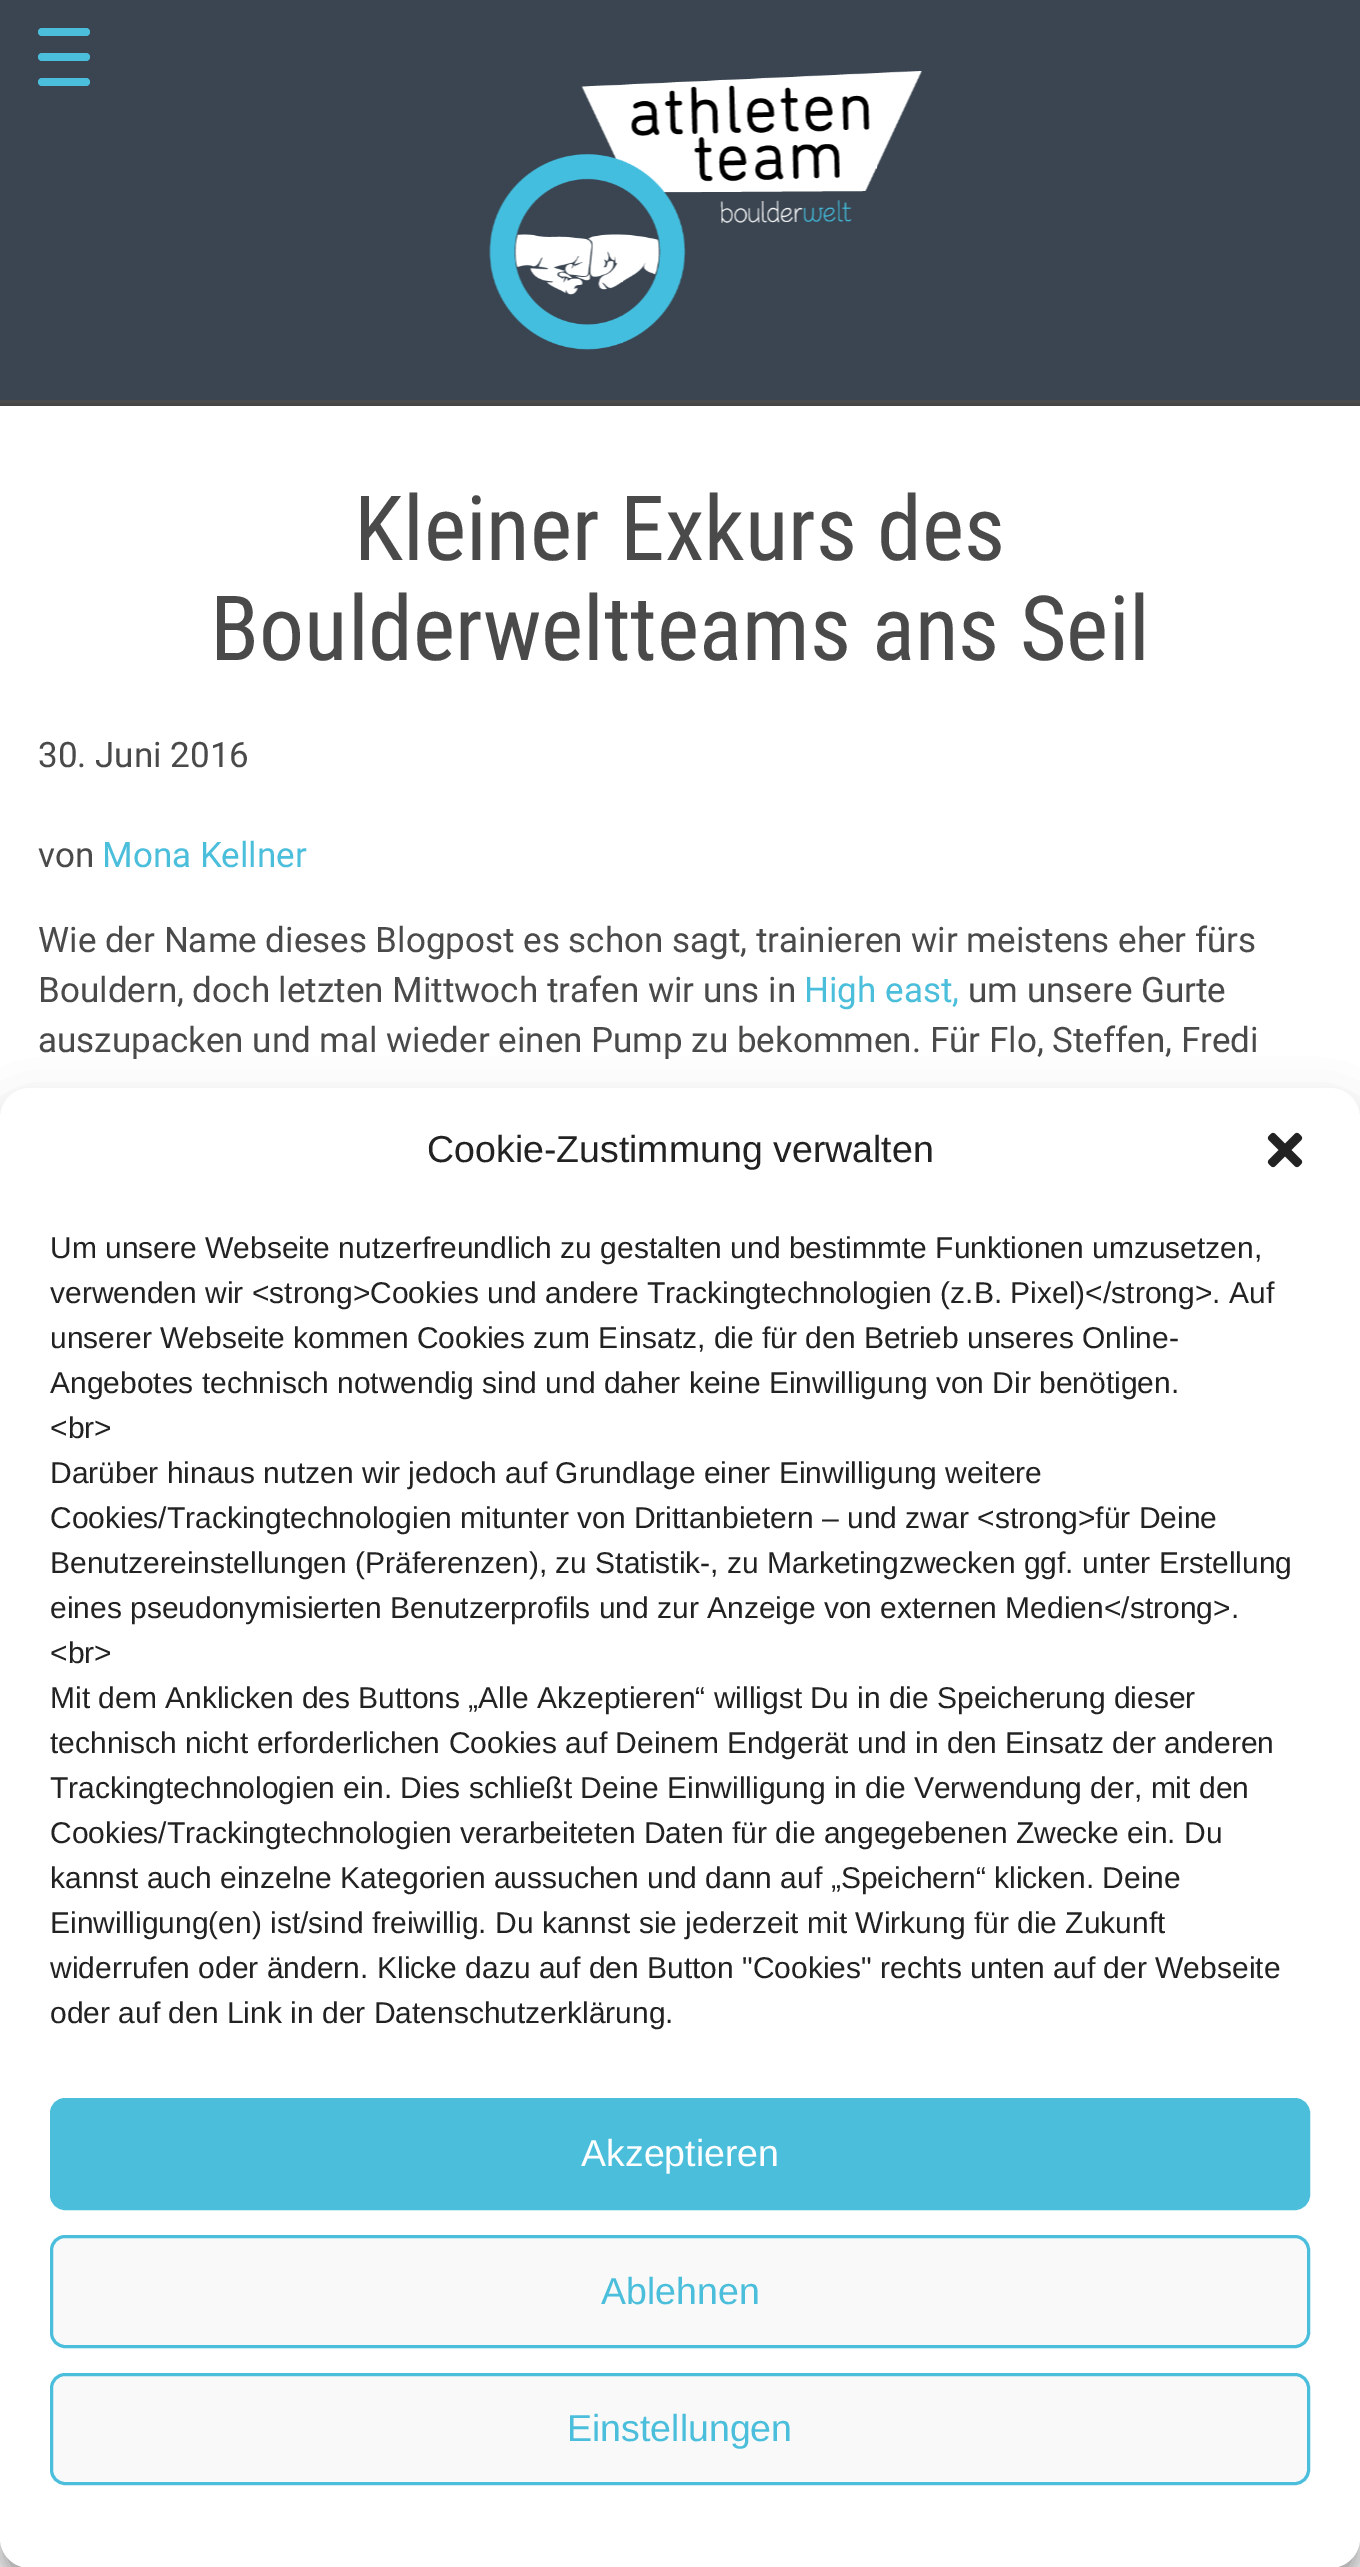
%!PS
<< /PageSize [1360 2567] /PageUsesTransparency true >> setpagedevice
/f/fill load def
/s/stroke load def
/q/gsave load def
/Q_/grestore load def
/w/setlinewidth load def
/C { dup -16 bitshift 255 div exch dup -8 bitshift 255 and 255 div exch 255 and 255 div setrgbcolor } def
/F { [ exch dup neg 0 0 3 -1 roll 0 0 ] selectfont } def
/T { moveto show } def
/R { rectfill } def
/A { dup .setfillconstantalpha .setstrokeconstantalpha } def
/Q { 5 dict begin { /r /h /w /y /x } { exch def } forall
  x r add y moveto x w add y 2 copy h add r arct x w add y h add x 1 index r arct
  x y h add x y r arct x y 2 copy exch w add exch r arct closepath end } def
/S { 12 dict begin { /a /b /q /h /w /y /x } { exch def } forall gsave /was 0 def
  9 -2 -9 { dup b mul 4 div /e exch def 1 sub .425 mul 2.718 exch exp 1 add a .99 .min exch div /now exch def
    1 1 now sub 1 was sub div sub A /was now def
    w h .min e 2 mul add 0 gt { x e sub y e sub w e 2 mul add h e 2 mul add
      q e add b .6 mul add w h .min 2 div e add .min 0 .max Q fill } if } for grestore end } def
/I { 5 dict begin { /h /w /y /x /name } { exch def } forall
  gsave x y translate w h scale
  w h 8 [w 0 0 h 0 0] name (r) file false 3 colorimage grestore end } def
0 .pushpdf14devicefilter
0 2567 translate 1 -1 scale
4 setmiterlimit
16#FFFFFF C
0 0 1360 2567 R
16#3A4551 C
0 0 1360 400 R
16#4BBEDB C
38 53 52 8 4 Q f
38 28 52 8 4 Q f
38 78 52 8 4 Q f
16#454545 C
0 403 1360 3 R
16#4A4A4A C
0 400 1360 3 R
(1.rgb) 489 71 433 279 I
/RobotoCondensed-Regular 90 F
(Kleiner Exkurs des) 354 560 T
(Boulderweltteams ans Seil) 210 660 T
/Roboto-Regular 35 F
(30. Juni 2016) 38 767 T
(von) 38 867 T
16#4BBEDB C
(Mona Kellner) 102 867 T
16#4A4A4A C
(Wie der Name dieses Blogpost es schon sagt, trainieren wir meistens eher fürs) 38 952 T
(Bouldern, doch letzten Mittwoch trafen wir uns in) 38 1002 T
16#4BBEDB C
(High east,) 804 1002 T
16#4A4A4A C
(um unsere Gurte) 968 1002 T
(auszupacken und mal wieder einen Pump zu bekommen. Für Flo, Steffen, Fredi) 38 1052 T
16#000000 C
0 1103 1360 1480 30 7.5 .23 S
0 1113 1360 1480 30 25 .19 S
16#FFFFFF C
0 1088 1360 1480 30 Q f
/LiberationSans-Regular 37.5 F
16#222222 C
(Cookie-Zustimmung verwalten) 427 1162 T
(2.rgb) 1267 1132 36 36 I
/LiberationSans-Regular 30 F
(Um unsere Webseite nutzerfreundlich zu gestalten und bestimmte Funktionen umzusetzen,) 50 1258 T
(verwenden wir <strong>Cookies und andere Trackingtechnologien \(z.B. Pixel\)</strong>. Auf) 50 1303 T
(unserer Webseite kommen Cookies zum Einsatz, die für den Betrieb unseres Online-) 50 1348 T
(Angebotes technisch notwendig sind und daher keine Einwilligung von Dir benötigen.) 50 1393 T
(<br>) 50 1438 T
(Darüber hinaus nutzen wir jedoch auf Grundlage einer Einwilligung weitere) 50 1483 T
(Cookies/Trackingtechnologien mitunter von Drittanbietern – und zwar <strong>für Deine) 50 1528 T
(Benutzereinstellungen \(Präferenzen\), zu Statistik-, zu Marketingzwecken ggf. unter Erstellung) 50 1573 T
(eines pseudonymisierten Benutzerprofils und zur Anzeige von externen Medien</strong>.) 50 1618 T
(<br>) 50 1663 T
(Mit dem Anklicken des Buttons „Alle Akzeptieren“ willigst Du in die Speicherung dieser) 50 1708 T
(technisch nicht erforderlichen Cookies auf Deinem Endgerät und in den Einsatz der anderen) 50 1753 T
(Trackingtechnologien ein. Dies schließt Deine Einwilligung in die Verwendung der, mit den) 50 1798 T
(Cookies/Trackingtechnologien verarbeiteten Daten für die angegebenen Zwecke ein. Du) 50 1843 T
(kannst auch einzelne Kategorien aussuchen und dann auf „Speichern“ klicken. Deine) 50 1888 T
(Einwilligung\(en\) ist/sind freiwillig. Du kannst sie jederzeit mit Wirkung für die Zukunft) 50 1933 T
(widerrufen oder ändern. Klicke dazu auf den Button "Cookies" rechts unten auf der Webseite) 50 1978 T
(oder auf den Link in der Datenschutzerklärung.) 50 2023 T
16#4BBEDB C
51.5 2099.5 1257 109 13.5 Q q f Q_
3 w
s
/LiberationSans-Regular 37.5 F
16#FFFFFF C
(Akzeptieren) 581 2166 T
16#F9F9F9 C
51.5 2236.5 1257 110 13.5 Q q f Q_
16#4BBEDB C
s
(Ablehnen) 601 2304 T
16#F9F9F9 C
51.5 2374.5 1257 109 13.5 Q q f Q_
16#4BBEDB C
s
(Einstellungen) 567 2441 T
.poppdf14devicefilter showpage
